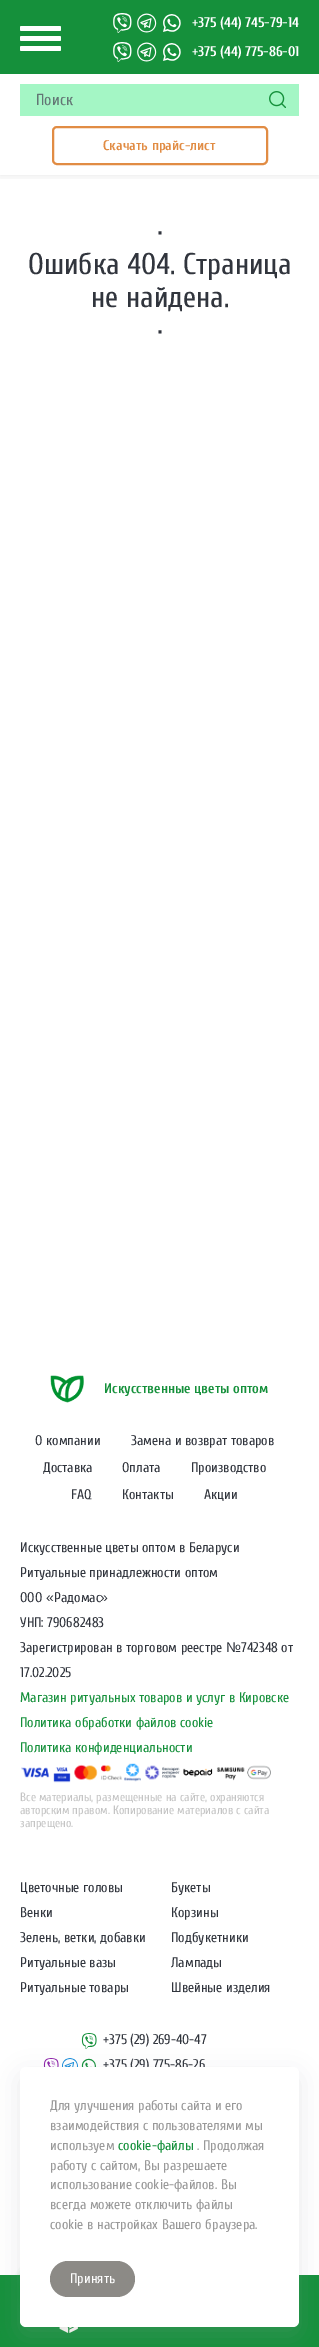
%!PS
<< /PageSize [319 2347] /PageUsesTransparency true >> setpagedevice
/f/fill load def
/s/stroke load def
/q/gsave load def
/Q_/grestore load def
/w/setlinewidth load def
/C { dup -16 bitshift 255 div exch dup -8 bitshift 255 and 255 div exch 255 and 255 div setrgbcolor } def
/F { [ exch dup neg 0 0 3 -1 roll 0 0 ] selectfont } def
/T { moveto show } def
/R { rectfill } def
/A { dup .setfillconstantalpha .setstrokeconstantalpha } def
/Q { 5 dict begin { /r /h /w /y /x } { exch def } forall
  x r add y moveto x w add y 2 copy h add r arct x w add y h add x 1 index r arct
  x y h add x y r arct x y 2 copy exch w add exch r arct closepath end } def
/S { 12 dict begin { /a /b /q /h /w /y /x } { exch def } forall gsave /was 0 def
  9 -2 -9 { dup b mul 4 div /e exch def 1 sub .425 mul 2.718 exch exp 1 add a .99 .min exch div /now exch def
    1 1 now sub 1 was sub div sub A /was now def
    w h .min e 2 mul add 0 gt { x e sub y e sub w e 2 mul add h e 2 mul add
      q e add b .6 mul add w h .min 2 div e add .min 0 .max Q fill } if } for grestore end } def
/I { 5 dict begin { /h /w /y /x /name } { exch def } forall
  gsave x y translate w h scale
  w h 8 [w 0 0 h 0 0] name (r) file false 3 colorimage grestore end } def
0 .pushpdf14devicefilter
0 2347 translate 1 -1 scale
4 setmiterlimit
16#FFFFFF C
0 0 319 2347 R
q
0 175 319 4 rectclip
16#000000 C
0 0 319 175 0 5 .1 S
Q_
16#15903B C
0 0 319 74 R
(1.rgb) 113 13 19 20 I
(2.rgb) 137 13 20 20 I
(3.rgb) 163 14 18 18 I
/Cuprum-Bold 14 F
16#FFFFFF C
(+375 \(44\) 745-79-14) 192 27 T
20 36 41 5 1.5 Q f
20 26 41 5 1.5 Q f
20 46 41 5 1.5 Q f
(1.rgb) 113 42 19 20 I
(2.rgb) 137 42 20 20 I
(3.rgb) 163 43 18 18 I
(+375 \(44\) 775-86-01) 192 56 T
16#A4F6C5 C
20 84 279 32 R
/Cuprum-Regular 16 F
16#637675 C
(Поиск) 36 105 T
(4.rgb) 269 91 17 17 I
16#E18C44 C
2 w
53 127 214 37 4 Q s
/Cuprum-Bold 14 F
(Скачать прайс-лист) 103 150 T
/LiberationSans-Regular 30 F
16#31353D C
(·) 155 241 T
/Cuprum-Regular 30 F
(Ошибка 404. Страница) 28 274 T
(не найдена.) 91 307 T
/LiberationSans-Regular 30 F
(·) 155 340 T
(5.rgb) 50 1375 34 28 I
/Cuprum-Bold 14 F
16#15903B C
(Искусственные цветы оптом) 104 1393 T
/Cuprum-Regular 14 F
16#31353D C
(О компании) 35 1445 T
(Замена и возврат товаров) 131 1445 T
(Доставка) 43 1472 T
(Оплата) 122 1472 T
(Производство) 191 1472 T
(FAQ) 71 1499 T
(Контакты) 122 1499 T
(Акции) 204 1499 T
(Искусственные цветы оптом в Беларуси) 20 1552 T
(Ритуальные принадлежности оптом) 20 1577 T
(ООО) 20 1602 T
/LiberationSans-Regular 14 F
(«) 46 1602 T
/Cuprum-Regular 14 F
(Радомас) 54 1602 T
/LiberationSans-Regular 14 F
(») 100 1602 T
/Cuprum-Regular 14 F
(УНП: 790682483) 20 1627 T
(Зарегистрирован в торговом реестре) 20 1652 T
/LiberationSans-Regular 14 F
(№) 226 1652 T
/Cuprum-Regular 14 F
(742348 от) 241 1652 T
(17.02.2025) 20 1677 T
16#15903B C
(Магазин ритуальных товаров и услуг в Кировске) 20 1702 T
(Политика обработки файлов cookie) 20 1727 T
(Политика конфиденциальности) 20 1752 T
(6.rgb) 21 1763 250 20 I
/Cuprum-Regular 12 F
16#C4C4C4 C
(Все материалы, размещенные на сайте, охраняются) 20 1801 T
(авторским правом. Копирование материалов с сайта) 20 1814 T
(запрещено.) 20 1827 T
/Cuprum-Regular 14 F
16#31353D C
(Цветочные головы) 20 1892 T
(Букеты) 171 1892 T
(Венки) 20 1917 T
(Корзины) 171 1917 T
(Зелень, ветки, добавки) 20 1942 T
(Подбукетники) 171 1942 T
(Ритуальные вазы) 20 1967 T
(Лампады) 171 1967 T
(Ритуальные товары) 20 1992 T
(Швейные изделия) 171 1992 T
(7.rgb) 81 2033 16 16 I
(+375 \(29\) 269-40-47) 103 2044 T
(8.rgb) 43 2058 16 9 I
(9.rgb) 62 2058 16 9 I
(10.rgb) 81 2058 15 9 I
(+375 \(29\) 775-86-26) 103 2069 T
16#15903B C
0 2275 319 72 R
(11.rgb) 59 2327 19 6 I
16#959DA5 C
20 2075 279 260 6 12 .2 S
16#15903B C
20 2262 60 60 30 4 1 S
16#FFFFFF C
20 2067 279 260 6 Q f
16#999999 C
(Для улучшения работы сайта и его) 50 2110 T
(взаимодействия с пользователями мы) 50 2130 T
(используем) 50 2150 T
16#15903B C
(cookie-файлы) 118 2150 T
16#999999 C
(. Продолжая) 197 2150 T
(работу с сайтом, Вы разрешаете) 50 2170 T
(использование cookie-файлов. Вы) 50 2189 T
(всегда можете отключить файлы) 50 2209 T
(cookie в настройках Вашего браузера.) 50 2229 T
16#8C8A86 C
50 2261 85 36 18 Q f
16#FFFFFF C
(Принять) 70 2283 T
.poppdf14devicefilter showpage
